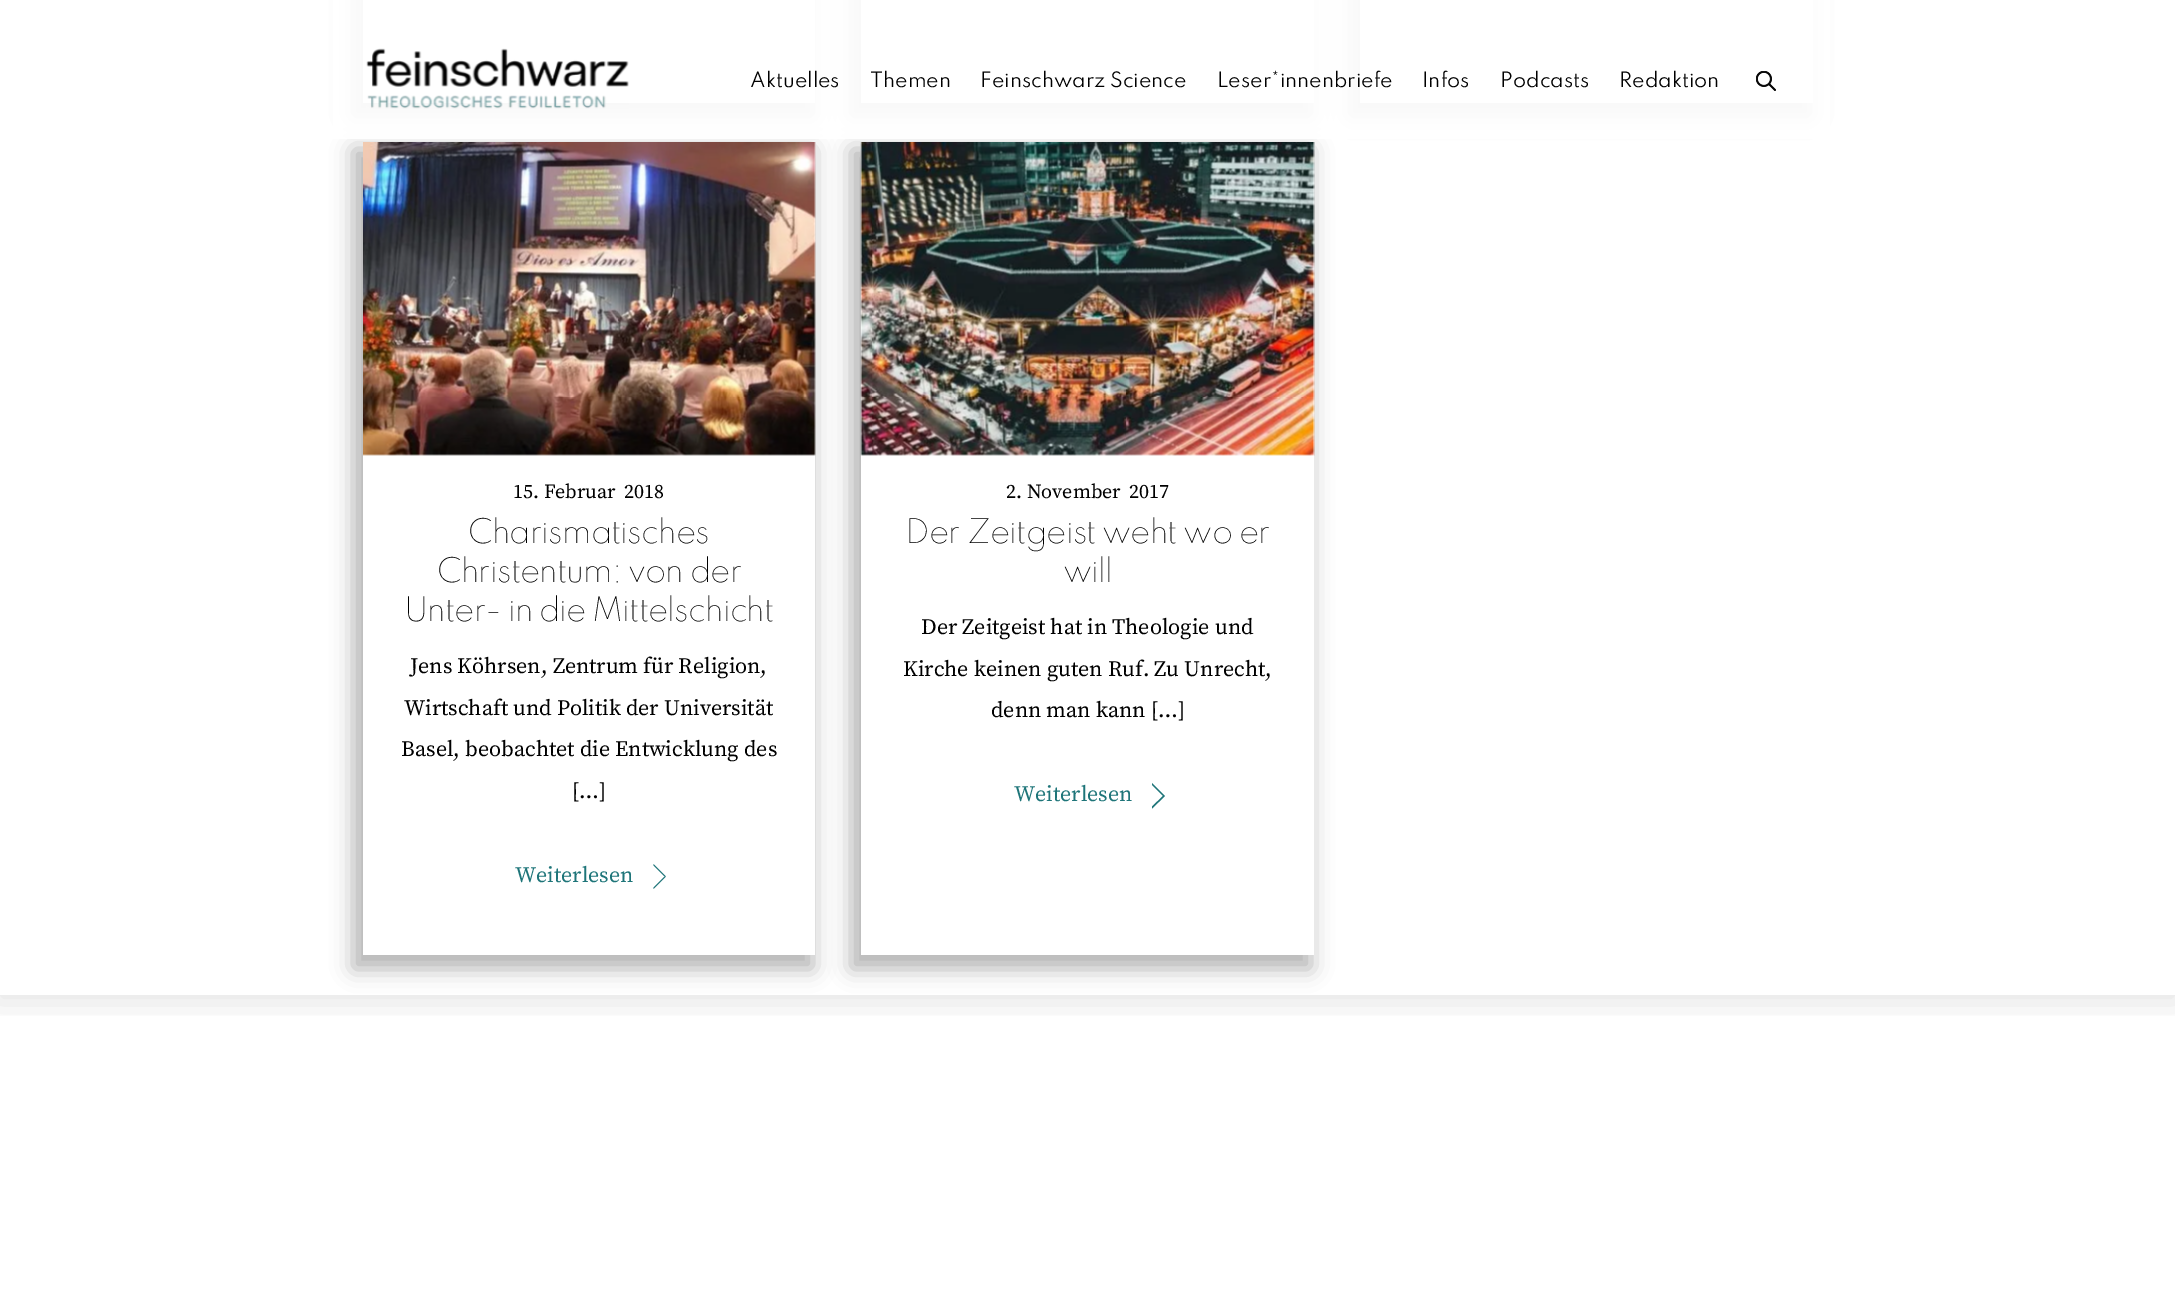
%!PS
<< /PageSize [2175 1302] /PageUsesTransparency true >> setpagedevice
/m/moveto load def
/l/rlineto load def
/z/closepath load def
/f/fill load def
/q/gsave load def
/Q_/grestore load def
/C { dup -16 bitshift 255 div exch dup -8 bitshift 255 and 255 div exch 255 and 255 div setrgbcolor } def
/F { [ exch dup neg 0 0 3 -1 roll 0 0 ] selectfont } def
/T { moveto show } def
/R { rectfill } def
/A { dup .setfillconstantalpha .setstrokeconstantalpha } def
/Q { 5 dict begin { /r /h /w /y /x } { exch def } forall
  x r add y moveto x w add y 2 copy h add r arct x w add y h add x 1 index r arct
  x y h add x y r arct x y 2 copy exch w add exch r arct closepath end } def
/S { 12 dict begin { /a /b /q /h /w /y /x } { exch def } forall gsave /was 0 def
  9 -2 -9 { dup b mul 4 div /e exch def 1 sub .425 mul 2.718 exch exp 1 add a .99 .min exch div /now exch def
    1 1 now sub 1 was sub div sub A /was now def
    w h .min e 2 mul add 0 gt { x e sub y e sub w e 2 mul add h e 2 mul add
      q e add b .6 mul add w h .min 2 div e add .min 0 .max Q fill } if } for grestore end } def
/I { 5 dict begin { /h /w /y /x /name } { exch def } forall
  gsave x y translate w h scale
  w h 8 [w 0 0 h 0 0] name (r) file false 3 colorimage grestore end } def
0 .pushpdf14devicefilter
0 1302 translate 1 -1 scale
4 setmiterlimit
16#FFFFFF C
0 0 2175 1302 R
q
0 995 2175 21 rectclip
16#000000 C
-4 -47 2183 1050 0 15.5 .1 S
Q_
16#000000 C
353 -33 460 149 0 11 .3 S
16#FFFFFF C
363 0 452 103 R
16#000000 C
851 -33 460 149 0 11 .3 S
16#FFFFFF C
861 0 453 103 R
16#000000 C
1350 -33 460 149 0 11 .3 S
16#FFFFFF C
1360 0 453 103 R
q
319 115 m 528 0 l 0 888 l -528 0 l z 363 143 m 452 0 l 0 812 l -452 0 l z eoclip newpath
16#000000 C
353 149 460 820 0 11 .3 S
Q_
16#000000 C
851 149 460 820 0 11 .3 S
0.9 A
16#FFFFFF C
333 0 1497 139 R
1 A
(1.rgb) 366 48 263 61 I
/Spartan-Regular 18.75 F
16#000000 C
(Aktuelles) 750 87 T
(Themen) 870 87 T
(Feinschwarz Science) 980 87 T
(Leser*innenbriefe) 1217 87 T
(Infos) 1422 87 T
(Podcasts) 1500 87 T
(Redaktion) 1619 87 T
(2.rgb) 1756 71 20 20 I
(3.rgb) 363 142 453 314 I
/SourceSerifPro-Regular 20 F
(15. Februar) 513 498 T
(2018) 624 498 T
/Spartan-Thin 30 F
468 543 m -.9 0 (Charismatisches) ashow
437 582 m -.9 0 (Christentum: von der) ashow
404 621 m -.9 0 (Unter- in die Mittelschicht) ashow
/SourceSerifPro-Regular 22 F
(Jens Köhrsen, Zentrum für Religion,) 410 673 T
(Wirtschaft und Politik der Universität) 404 715 T
(Basel, beobachtet die Entwicklung des) 401 756 T
([…]) 572 798 T
16#1E7579 C
(Weiterlesen) 515 882 T
653.5 864 m 12.5 12.5 l -1.5 0 l -11 -11 l z f
666 876.5 m -12.5 12.5 l 0 -1.5 l 11 -11 l z f
16#FFFFFF C
861 143 453 812 R
(4.rgb) 860 142 455 314 I
/SourceSerifPro-Regular 20 F
16#000000 C
(2. November) 1006 498 T
(2017) 1129 498 T
/Spartan-Thin 30 F
905 543 m -.9 0 (Der Zeitgeist weht wo er) ashow
1063 582 m -.9 0 (will) ashow
/SourceSerifPro-Regular 22 F
(Der Zeitgeist hat in Theologie und) 921 634 T
(Kirche keinen guten Ruf. Zu Unrecht,) 903 676 T
(denn man kann […]) 991 717 T
16#1E7579 C
(Weiterlesen) 1014 801 T
1152 783 m 13 13 l -2 0 l -11 -11 l z 1165 796 m -13 12.5 l 0 -2 l 11 -10.5 l z f
.poppdf14devicefilter showpage
